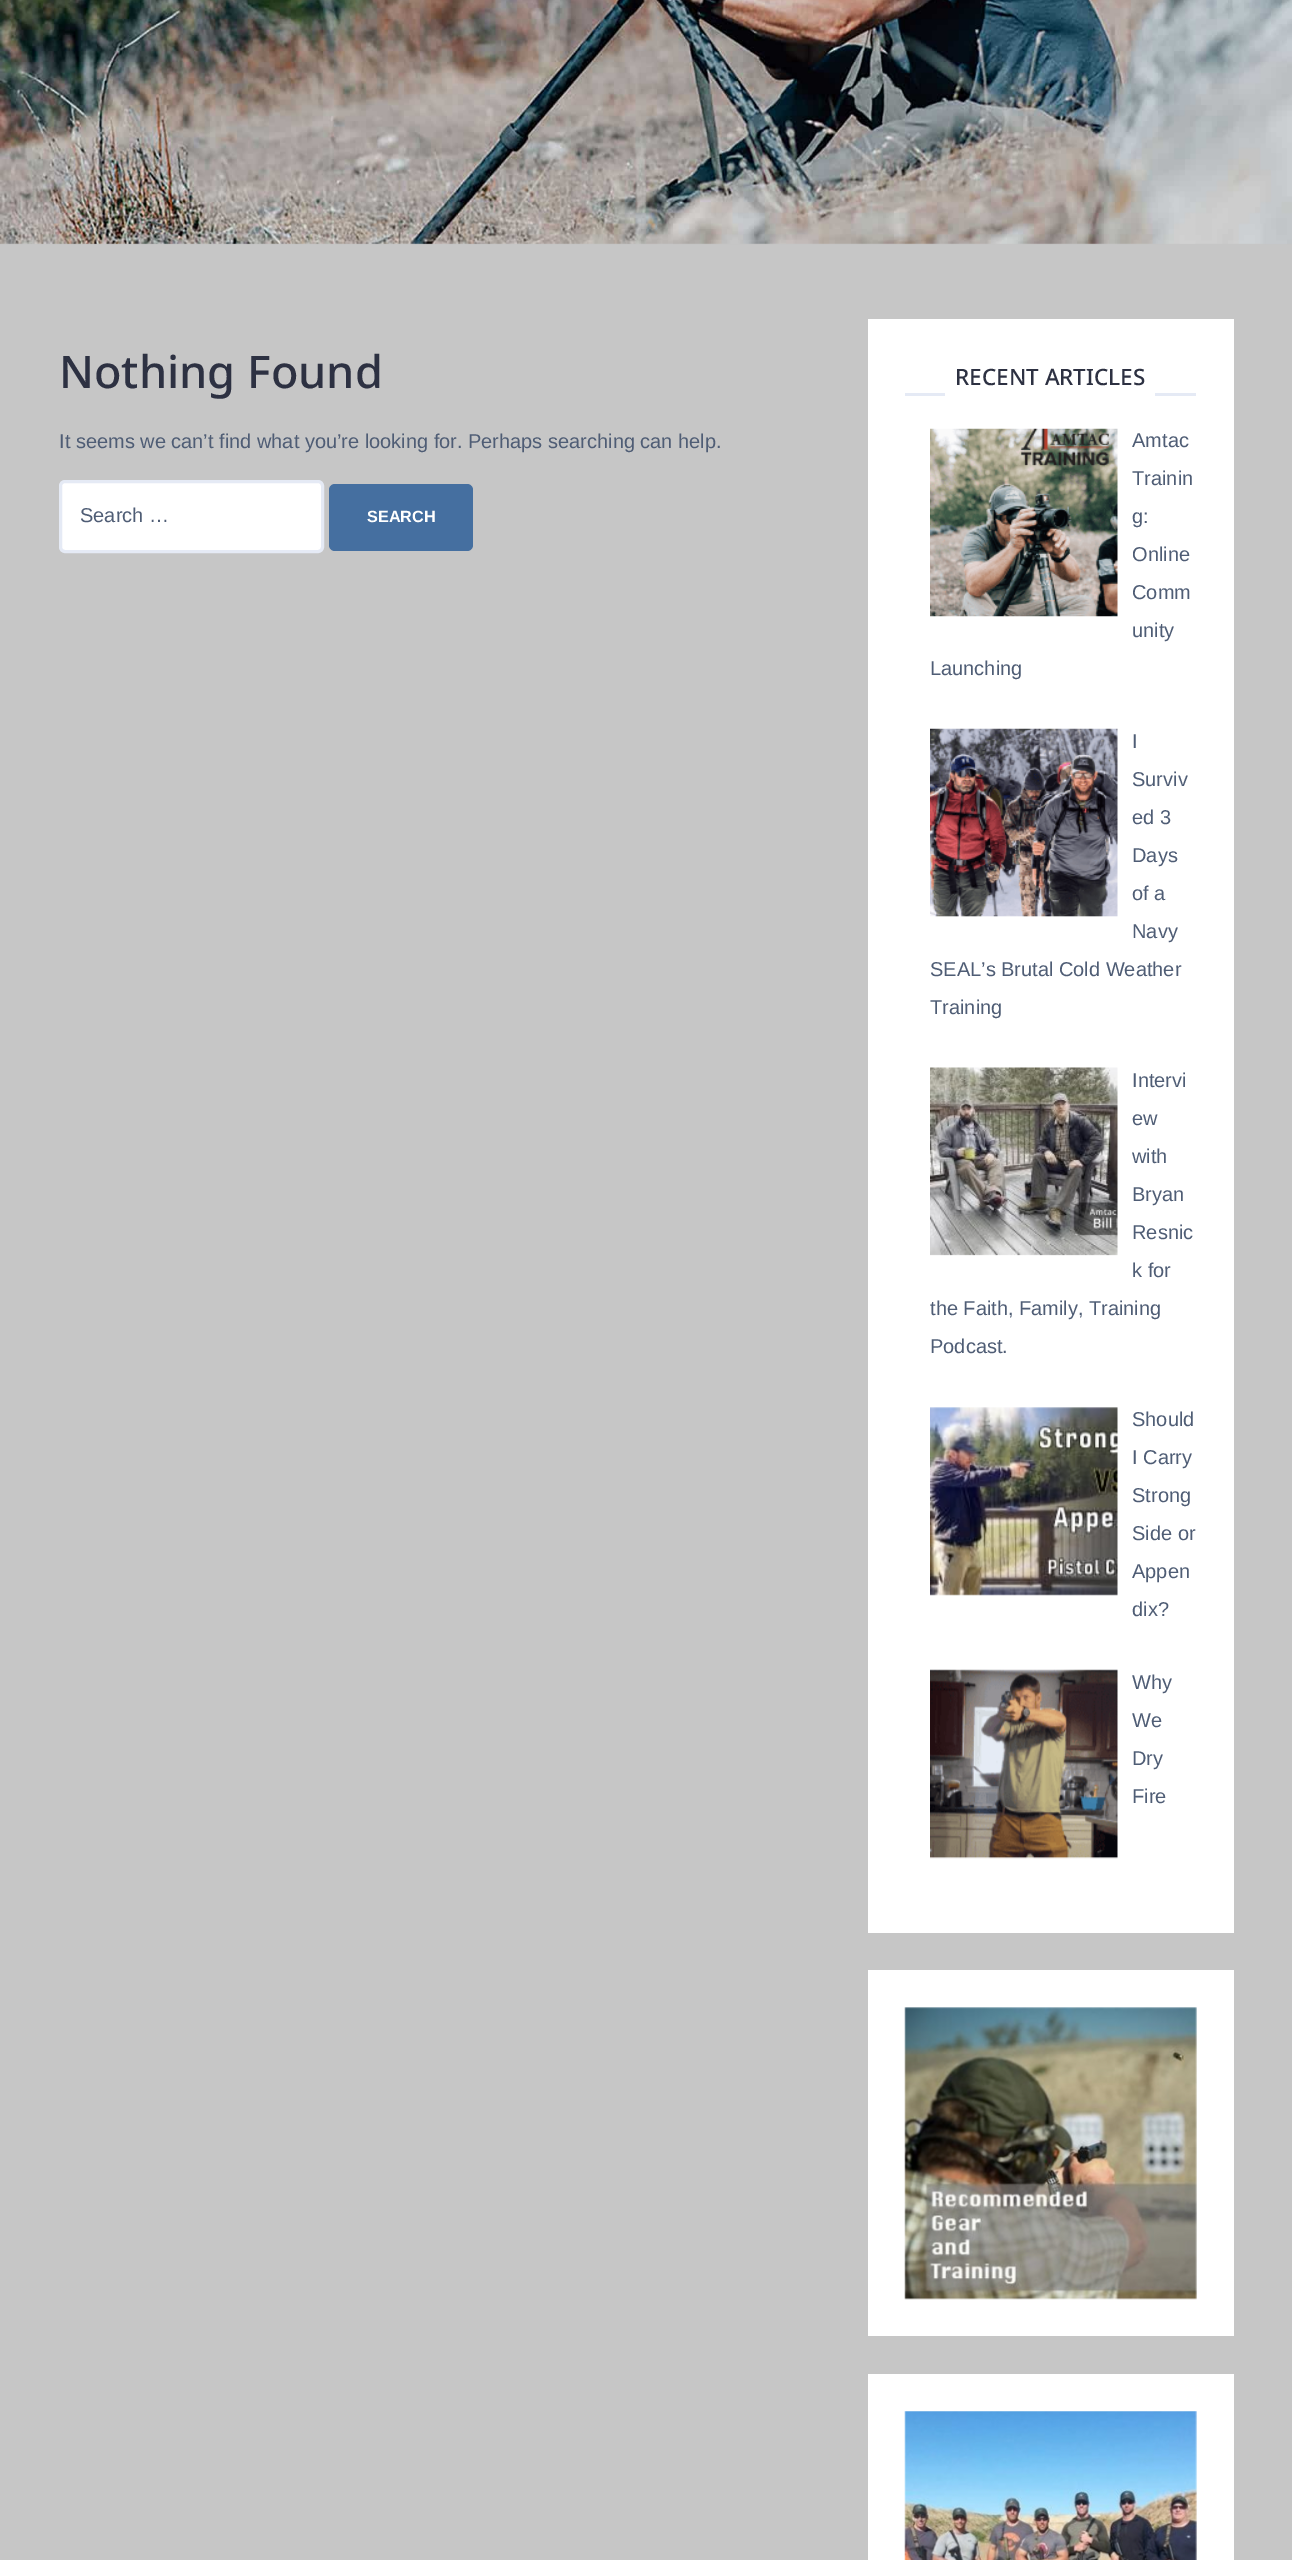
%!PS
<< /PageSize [1292 2560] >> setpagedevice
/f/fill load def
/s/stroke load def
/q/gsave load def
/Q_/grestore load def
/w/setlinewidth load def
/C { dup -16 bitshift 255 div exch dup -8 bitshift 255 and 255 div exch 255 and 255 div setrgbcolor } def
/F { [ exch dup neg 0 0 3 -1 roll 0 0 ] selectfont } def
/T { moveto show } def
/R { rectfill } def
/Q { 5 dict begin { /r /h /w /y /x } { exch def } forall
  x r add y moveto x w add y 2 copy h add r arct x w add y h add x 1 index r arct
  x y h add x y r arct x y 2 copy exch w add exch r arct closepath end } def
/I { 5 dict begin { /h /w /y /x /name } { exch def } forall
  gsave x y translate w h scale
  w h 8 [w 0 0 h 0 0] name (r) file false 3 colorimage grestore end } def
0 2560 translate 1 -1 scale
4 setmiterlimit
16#C6C6C6 C
0 0 1292 2560 R
(1.rgb) 0 0 1292 245 I
/NotoSans-Medium 45 F
16#2D3142 C
(Nothing Found) 59 388 T
/LiberationSans-Regular 20 F
16#4F5D75 C
(It seems we can’t find what you’re looking for. Perhaps searching can help.) 59 448 T
16#FFFFFF C
60.5 481.5 262 70 4.5 Q q f Q_
16#E5EAF5 C
3 w
s
16#4F5D75 C
(Search …) 80 522 T
16#456FA0 C
329 484 144 67 6 Q f
/LiberationSans-Bold 16.25 F
16#FFFFFF C
(SEARCH) 367 522 T
868 319 366 1614 R
16#E5EAF5 C
905 393 291 3 R
16#FFFFFF C
945 393 210 3 R
/NotoSans-Medium 22.5 F
16#2D3142 C
(RECENT ARTICLES) 955 385 T
(2.rgb) 930 428 188 189 I
/LiberationSans-Regular 20 F
16#4F5D75 C
(Amtac) 1132 447 T
(Trainin) 1132 485 T
(g:) 1132 523 T
(Online) 1132 561 T
(Comm) 1132 599 T
(unity) 1132 637 T
(Launching) 930 675 T
(3.rgb) 930 728 188 189 I
(I) 1132 748 T
(Surviv) 1132 786 T
(ed 3) 1132 824 T
(Days) 1132 862 T
(of a) 1132 900 T
(Navy) 1132 938 T
(SEAL’s Brutal Cold Weather) 930 976 T
(Training) 930 1014 T
(4.rgb) 930 1067 188 189 I
(Intervi) 1132 1087 T
(ew) 1132 1125 T
(with) 1132 1163 T
(Bryan) 1132 1201 T
(Resnic) 1132 1239 T
(k for) 1132 1277 T
(the Faith, Family, Training) 930 1315 T
(Podcast.) 930 1353 T
(5.rgb) 930 1407 188 189 I
(Should) 1132 1426 T
(I Carry) 1132 1464 T
(Strong) 1132 1502 T
(Side or) 1132 1540 T
(Appen) 1132 1578 T
(dix?) 1132 1616 T
(6.rgb) 930 1669 188 190 I
(Why) 1132 1689 T
(We) 1132 1727 T
(Dry) 1132 1765 T
(Fire) 1132 1803 T
16#FFFFFF C
868 1970 366 366 R
(7.rgb) 904 2007 293 293 I
868 2374 366 186 R
(8.rgb) 904 2411 293 149 I
showpage
